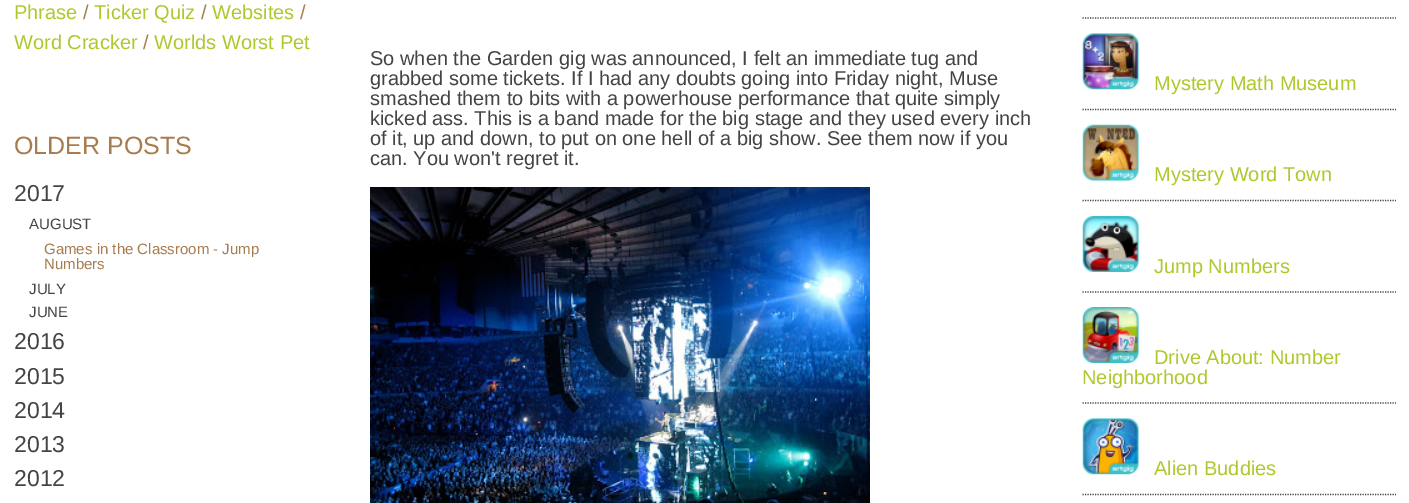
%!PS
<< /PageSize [1409 503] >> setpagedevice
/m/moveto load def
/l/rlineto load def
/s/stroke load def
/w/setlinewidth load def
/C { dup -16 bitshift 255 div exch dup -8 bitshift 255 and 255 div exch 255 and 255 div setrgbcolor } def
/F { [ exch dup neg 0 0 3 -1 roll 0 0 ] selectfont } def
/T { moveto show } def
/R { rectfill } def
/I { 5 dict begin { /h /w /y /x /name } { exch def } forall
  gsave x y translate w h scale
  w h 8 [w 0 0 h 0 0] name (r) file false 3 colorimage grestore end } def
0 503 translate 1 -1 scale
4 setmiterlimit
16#FFFFFF C
0 0 1409 503 R
/LiberationSans-Regular 20 F
16#B1C72D C
(Phrase) 14 19 T
16#A87C4F C
(/) 83 19 T
16#B1C72D C
(Ticker Quiz) 94 19 T
16#A87C4F C
(/) 201 19 T
16#B1C72D C
(Websites) 212 19 T
16#A87C4F C
(/) 300 19 T
16#B1C72D C
(Word Cracker) 14 49 T
16#A87C4F C
(/) 143 49 T
16#B1C72D C
(Worlds Worst Pet) 154 49 T
/LiberationSans-Regular 25 F
16#A87C4F C
(OLDER POSTS) 14 154 T
/LiberationSans-Regular 23 F
16#444444 C
(2017) 14 201 T
/LiberationSans-Regular 15 F
(AUGUST) 29 229 T
16#A87C4F C
(Games in the Classroom - Jump) 44 254 T
(Numbers) 44 269 T
16#444444 C
(JULY) 29 294 T
(JUNE) 29 317 T
/LiberationSans-Regular 23 F
(2016) 14 349 T
(2015) 14 384 T
(2014) 14 418 T
(2013) 14 452 T
(2012) 14 486 T
/LiberationSans-Regular 20 F
(So when the Garden gig was announced, I felt an immediate tug and) 370 65 T
(grabbed some tickets. If I had any doubts going into Friday night, Muse) 370 85 T
(smashed them to bits with a powerhouse performance that quite simply) 370 105 T
(kicked ass. This is a band made for the big stage and they used every inch) 370 125 T
(of it, up and down, to put on one hell of a big show. See them now if you) 370 145 T
(can. You won't regret it.) 370 165 T
(1.rgb) 370 187 500 316 I
1.2 w
[1.25 1.25] 0 setdash
1082.5 18 m 313.5 0 l s
(2.rgb) 1082 33 57 57 I
16#B1C72D C
(Mystery Math Museum) 1154 90 T
16#444444 C
1082.5 109.5 m 313.5 0 l s
(3.rgb) 1082 124 57 57 I
16#B1C72D C
(Mystery Word Town) 1154 181 T
16#444444 C
1082.5 200.5 m 313.5 0 l s
(4.rgb) 1082 215 57 57 I
16#B1C72D C
(Jump Numbers) 1154 273 T
16#444444 C
1082.5 292 m 313.5 0 l s
(5.rgb) 1082 307 57 57 I
16#B1C72D C
(Drive About: Number) 1154 364 T
(Neighborhood) 1082 384 T
16#444444 C
1082.5 403 m 313.5 0 l s
(6.rgb) 1082 418 57 57 I
16#B1C72D C
(Alien Buddies) 1154 475 T
16#444444 C
1082.5 494.5 m 313.5 0 l s
showpage
